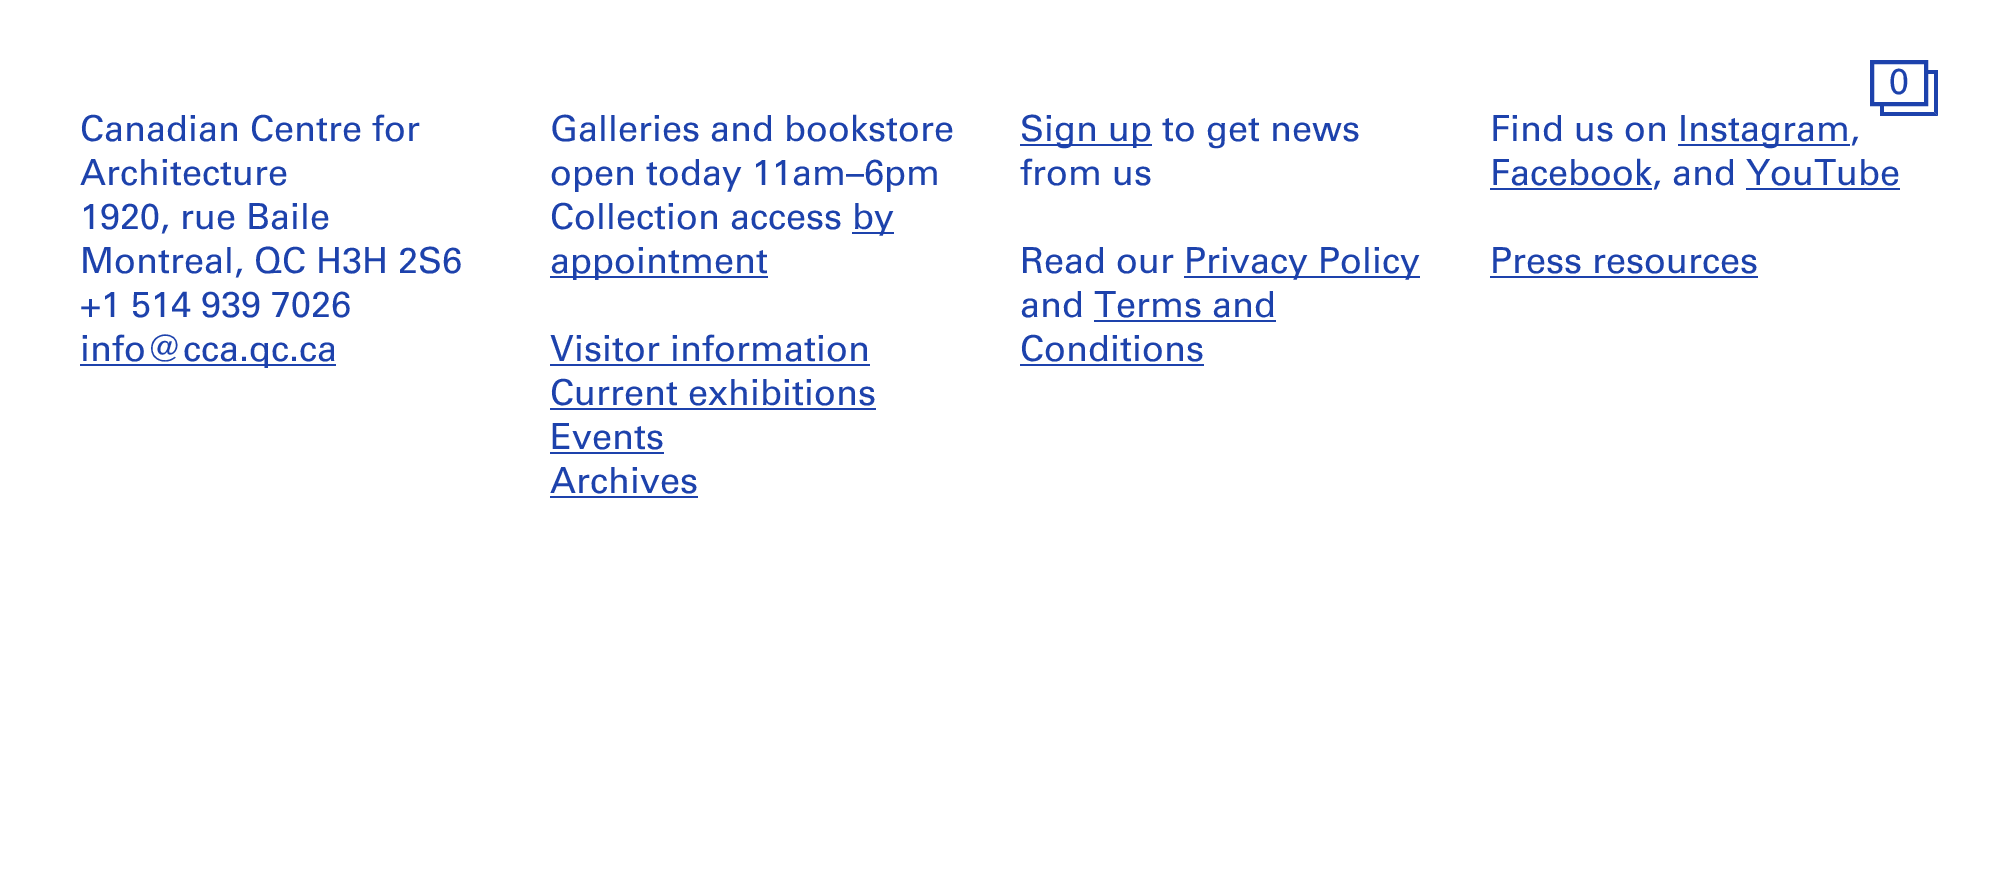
%!PS
<< /PageSize [1999 887] >> setpagedevice
/m/moveto load def
/l/rlineto load def
/z/closepath load def
/f/fill load def
/w/setlinewidth load def
/C { dup -16 bitshift 255 div exch dup -8 bitshift 255 and 255 div exch 255 and 255 div setrgbcolor } def
/F { [ exch dup neg 0 0 3 -1 roll 0 0 ] selectfont } def
/T { moveto show } def
/R { rectfill } def
0 887 translate 1 -1 scale
4 setmiterlimit
16#FFFFFF C
0 0 1999 887 R
16#1D42AC C
1938 70 m 0 46 l -4 -4 l 0 -38 l z f
1926 70 12 4 R
4 w
1872 62 54 42 rectstroke
/Univers-Regular 36 F
(0) 1889 94 T
1938 116 m -58 0 l 4 -4 l 50 0 l z f
1880 106 4 10 R
(Canadian Centre for) 80 141 T
(Architecture) 80 185 T
(1920, rue Baile) 80 229 T
(Montreal, QC H3H 2S6) 80 273 T
(+1 514 939 7026) 80 317 T
80 364 256 2 R
(info@cca.qc.ca) 80 361 T
(Galleries and bookstore) 550 141 T
(open today 11am–6pm) 550 185 T
(Collection access) 550 229 T
852 232 42 2 R
(by) 852 229 T
550 276 218 2 R
(appointment) 550 273 T
(Visitor information) 550 361 T
550 364 320 2 R
(Current exhibitions) 550 405 T
550 408 326 2 R
(Events) 550 449 T
550 452 114 2 R
(Archives) 550 493 T
550 496 148 2 R
1020 144 132 2 R
(Sign up to get news) 1020 141 T
(from us) 1020 185 T
(Read our) 1020 273 T
1184 276 236 2 R
(Privacy Policy) 1184 273 T
(and Terms and) 1020 317 T
(Conditions) 1020 361 T
1094 320 182 2 R
1020 364 184 2 R
(Find us on) 1490 141 T
1678 144 172 2 R
(Instagram,) 1678 141 T
1490 188 162 2 R
(Facebook, and YouTube) 1490 185 T
1746 188 154 2 R
(Press resources) 1490 273 T
1490 276 268 2 R
showpage
